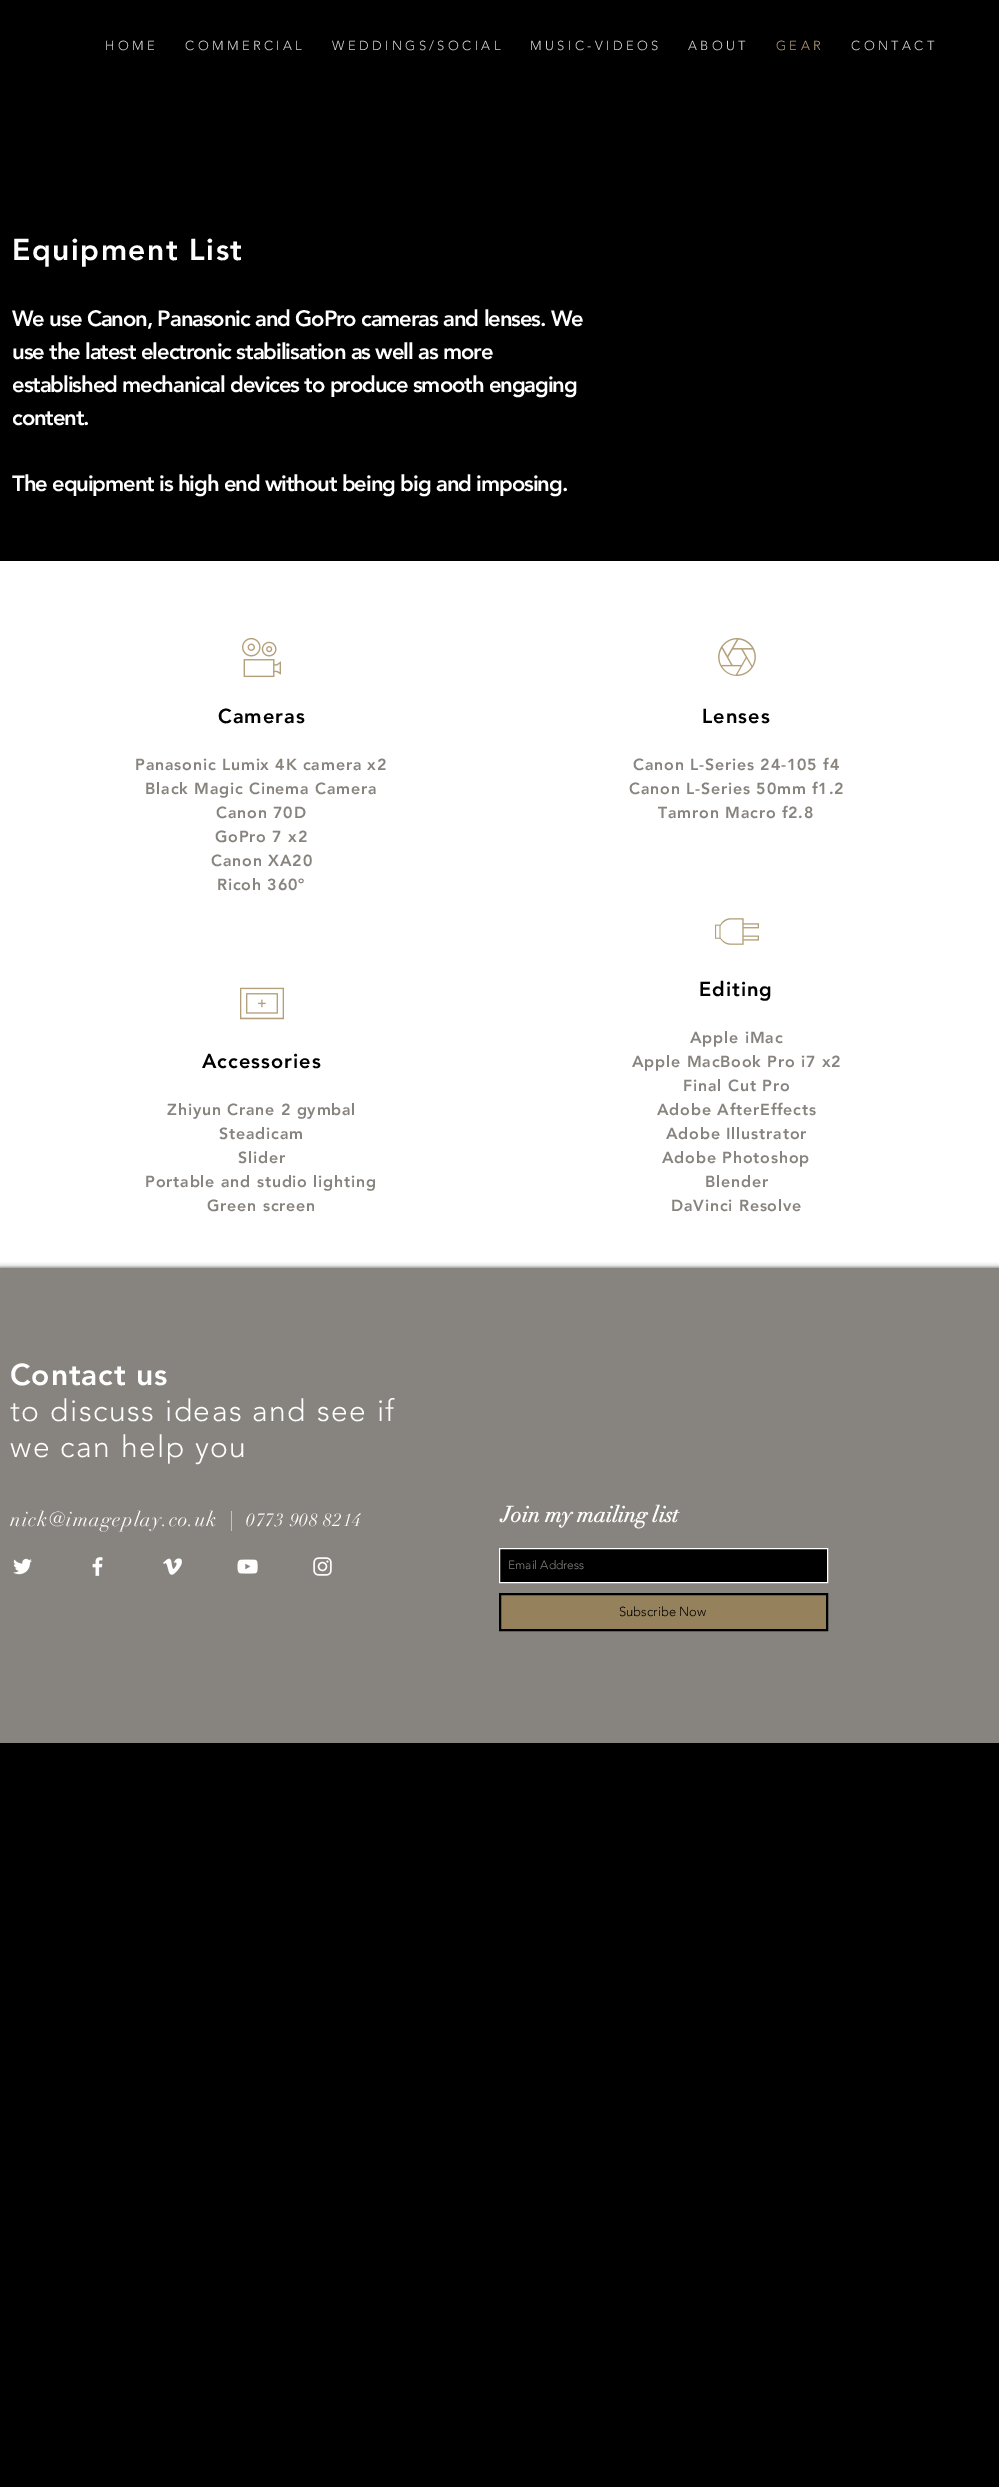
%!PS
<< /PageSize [999 2487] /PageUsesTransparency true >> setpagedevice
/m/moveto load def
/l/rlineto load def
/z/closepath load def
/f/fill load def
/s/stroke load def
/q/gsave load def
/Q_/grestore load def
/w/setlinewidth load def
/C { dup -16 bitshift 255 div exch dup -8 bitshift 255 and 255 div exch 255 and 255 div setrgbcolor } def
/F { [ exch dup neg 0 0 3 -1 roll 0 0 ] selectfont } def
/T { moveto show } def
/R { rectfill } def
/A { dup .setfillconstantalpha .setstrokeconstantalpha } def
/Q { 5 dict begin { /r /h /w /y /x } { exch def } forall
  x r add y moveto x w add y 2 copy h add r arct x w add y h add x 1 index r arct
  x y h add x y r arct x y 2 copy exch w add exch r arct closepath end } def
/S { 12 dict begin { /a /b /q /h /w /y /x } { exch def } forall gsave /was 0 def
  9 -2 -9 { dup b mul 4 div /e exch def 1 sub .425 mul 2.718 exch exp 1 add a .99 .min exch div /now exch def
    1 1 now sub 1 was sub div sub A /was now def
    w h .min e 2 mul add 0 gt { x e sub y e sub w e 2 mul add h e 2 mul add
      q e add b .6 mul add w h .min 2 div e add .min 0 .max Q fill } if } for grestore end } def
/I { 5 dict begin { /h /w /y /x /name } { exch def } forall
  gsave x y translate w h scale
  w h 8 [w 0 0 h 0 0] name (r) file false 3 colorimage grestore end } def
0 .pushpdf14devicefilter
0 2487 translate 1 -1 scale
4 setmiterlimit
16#000000 C
0 0 999 2487 R
/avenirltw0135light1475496-Light 13 F
16#DBD9D7 C
(H O M E) 105 50 T
(C O M M E R C I A L) 185 50 T
(W E D D I N G S / S O C I A L) 332 50 T
(M U S I C - V I D E O S) 530 50 T
(A B O U T) 688 50 T
16#B39F79 C
(G E A R) 776 50 T
16#DBD9D7 C
(C O N T A C T) 851 50 T
/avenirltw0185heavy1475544-Black 30 F
16#FFFFFF C
12 260 m 1.5 0 (Equipment List) ashow
/avenirltw0185heavy1475544-Black 22 F
12 326 m -1.1 0 (We use Canon, Panasonic and GoPro cameras and lenses. We) ashow
12 359 m -1.1 0 (use the latest electronic stabilisation as well as more) ashow
12 392 m -1.1 0 (established mechanical devices to produce smooth engaging) ashow
12 425 m -1.1 0 (content.) ashow
12 491 m -1.1 0 (The equipment is high end without being big and imposing.) ashow
0 561 999 707 R
(1.rgb) 242 637 39 41 I
(2.rgb) 718 638 38 38 I
/avenirltw0185heavy1475544-Black 20 F
16#000000 C
218 723 m 1 0 (Cameras) ashow
702 723 m 1 0 (Lenses) ashow
/avenirltw0185heavy1475544-Black 16 F
16#87837E C
135 770 m .8 0 (Panasonic Lumix 4K camera x2) ashow
145 794 m .8 0 (Black Magic Cinema Camera) ashow
216 818 m .8 0 (Canon 70D) ashow
215 842 m .8 0 (GoPro 7 x2) ashow
211 866 m .8 0 (Canon XA20) ashow
217 890 m .8 0 (Ricoh 360º) ashow
633 770 m .8 0 (Canon L-Series 24-105 f4) ashow
629 794 m .8 0 (Canon L-Series 50mm f1.2) ashow
658 818 m .8 0 (Tamron Macro f2.8) ashow
(3.rgb) 715 918 44 27 I
(4.rgb) 240 987 44 33 I
/avenirltw0185heavy1475544-Black 20 F
16#000000 C
699 996 m 1 0 (Editing) ashow
202 1068 m 1 0 (Accessories) ashow
/avenirltw0185heavy1475544-Black 16 F
16#87837E C
690 1043 m .8 0 (Apple iMac) ashow
632 1067 m .8 0 (Apple MacBook Pro i7 x2) ashow
683 1091 m .8 0 (Final Cut Pro) ashow
657 1115 m .8 0 (Adobe AfterEffects) ashow
666 1139 m .8 0 (Adobe Illustrator) ashow
662 1163 m .8 0 (Adobe Photoshop) ashow
705 1187 m .8 0 (Blender) ashow
671 1211 m .8 0 (DaVinci Resolve) ashow
167 1115 m .8 0 (Zhiyun Crane 2 gymbal) ashow
219 1139 m .8 0 (Steadicam) ashow
238 1163 m .8 0 (Slider) ashow
145 1187 m .8 0 (Portable and studio lighting) ashow
207 1211 m .8 0 (Green screen) ashow
16#000000 C
0 1268 999 475 0 2.5 .7 S
16#87837E C
0 1268 999 475 R
/avenirltw0185heavy1475544-Black 30 F
16#FFFFFF C
10 1385 m .9 0 (Contact us) ashow
/avenirltw0135light1475496-Light 30 F
10 1421 m 1.5 0 (to discuss ideas and see if) ashow
10 1457 m 1.5 0 (we can help you) ashow
/didot-Regular 20 F
10 1526 m 1 0 (nick@imageplay.co.uk  |) ashow
/didot-Regular 18 F
246 1526 m .9 0 (0773 908 8214) ashow
/didot-Bold 22 F
(Join my mailing list) 501 1522 T
16#000000 C
499.5 1548.5 m 328 0 l 0 34 l -328 0 l z q f Q_
16#FFFFFF C
s
/avenirltw0135light1475496-Light 12 F
16#87837E C
(Email Address) 508 1569 T
16#95815B C
500 1594 m 327 0 l 0 36 l -327 0 l z q f Q_
16#000000 C
2 w
s
/avenirltw0135light1475496-Light 13 F
(Subscribe Now) 619 1616 T
(5.rgb) 13 1558 19 17 I
(6.rgb) 92 1557 11 19 I
(7.rgb) 163 1558 19 17 I
(8.rgb) 237 1559 21 15 I
(9.rgb) 313 1557 19 19 I
.poppdf14devicefilter showpage
